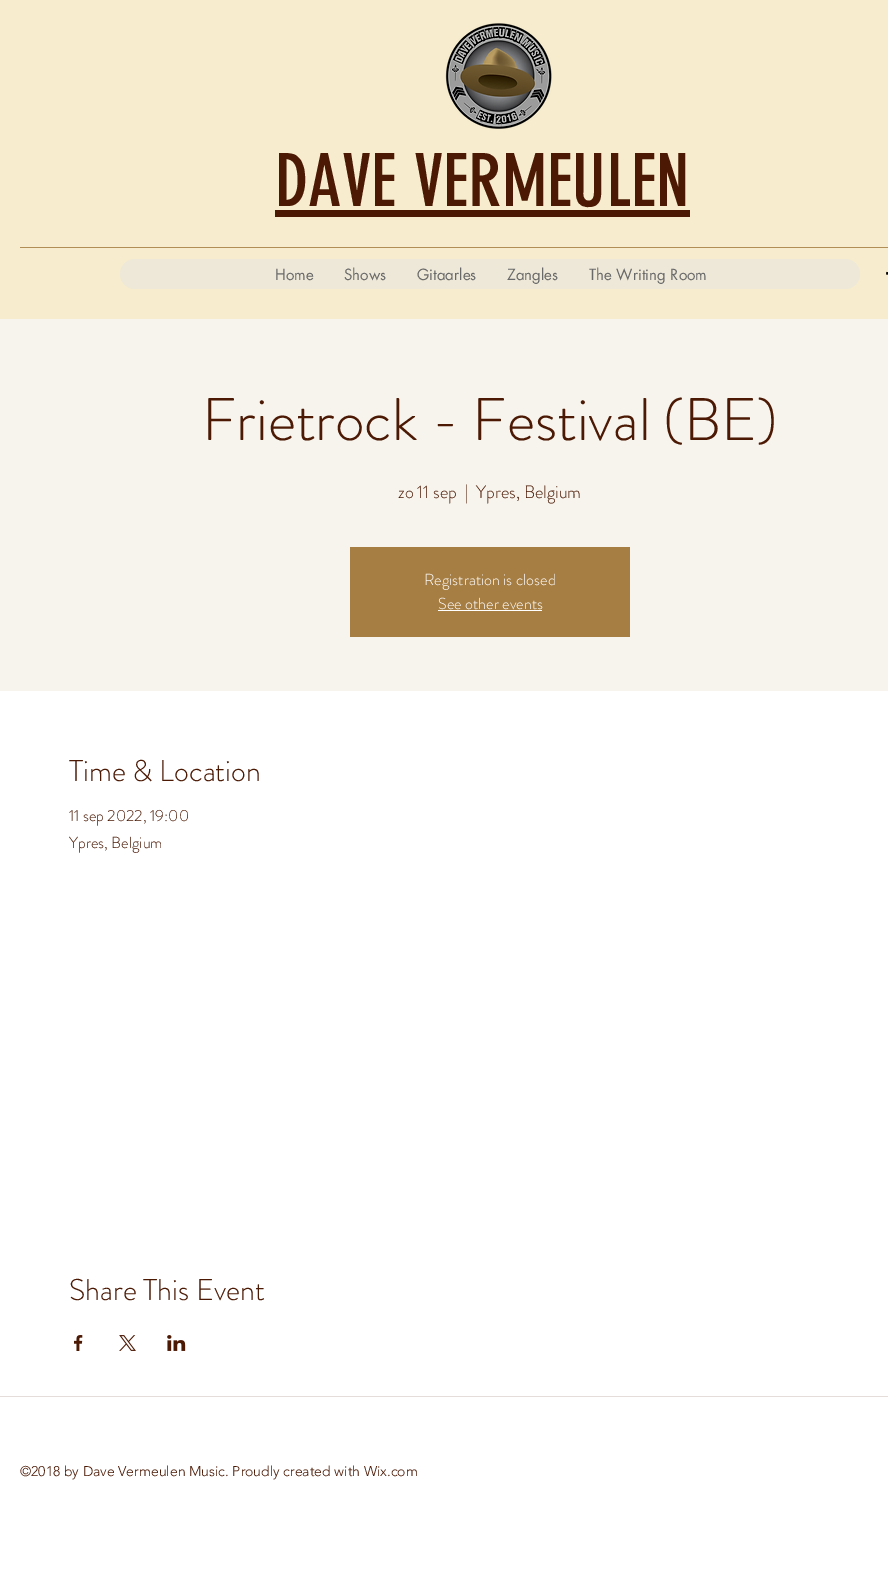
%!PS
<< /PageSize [888 1575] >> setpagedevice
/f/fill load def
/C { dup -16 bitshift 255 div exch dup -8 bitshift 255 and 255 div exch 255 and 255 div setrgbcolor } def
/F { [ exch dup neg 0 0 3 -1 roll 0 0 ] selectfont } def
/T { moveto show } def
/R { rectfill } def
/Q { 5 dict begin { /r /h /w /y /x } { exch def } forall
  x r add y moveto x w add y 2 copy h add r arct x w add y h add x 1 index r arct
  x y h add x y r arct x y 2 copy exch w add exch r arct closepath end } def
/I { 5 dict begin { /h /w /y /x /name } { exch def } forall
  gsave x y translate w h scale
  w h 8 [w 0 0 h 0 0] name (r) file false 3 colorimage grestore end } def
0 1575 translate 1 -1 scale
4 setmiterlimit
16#FFFFFF C
0 0 888 1575 R
16#F7EDCE C
0 0 888 319 R
(1.rgb) 445 23 107 106 I
/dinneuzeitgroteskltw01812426-Regular 72 F
16#4B1904 C
(DAVE VERMEULEN) 275 206 T
275 210 415 7 R
16#B28E57 C
20 247 868 1 R
16#EEE8D8 C
120 259 740 30 15 Q f
/futura-Regular 15 F
16#696969 C
(Home) 275 280 T
(Shows) 344 280 T
(Gitaarles) 417 280 T
(Zangles) 507 280 T
(The Writing Room) 589 280 T
(2.rgb) 886 271 2 4 I
16#F7F3ED C
0 319 888 372 R
/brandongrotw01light-Light 60 F
16#4B1904 C
(Frietrock - Festival \(BE\)) 202 440 T
/brandongrotw01light-Light 18 F
(zo 11 sep) 398 498 T
(|) 465 498 T
(Ypres, Belgium) 476 498 T
16#A67D42 C
350 547 280 90 R
/brandongrotw01light-Light 16 F
16#FFFFFF C
(Registration is closed) 424 585 T
(See other events) 438 609 T
438 610 104 1 R
/brandongrotw01light-Light 30 F
16#4B1904 C
(Time & Location) 69 781 T
/brandongrotw01light-Light 16 F
(11 sep 2022, 19:00) 69 821 T
(Ypres, Belgium) 69 848 T
/brandongrotw01light-Light 30 F
(Share This Event) 69 1300 T
(3.rgb) 74 1335 9 16 I
(4.rgb) 119 1335 17 16 I
(5.rgb) 167 1335 19 16 I
16#E4DDD9 C
0 1396 888 1 R
/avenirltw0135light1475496-Light 14 F
16#4B1904 C
(©2018 by Dave Vermeulen Music. Proudly created with Wix.com) 20 1476 T
showpage
